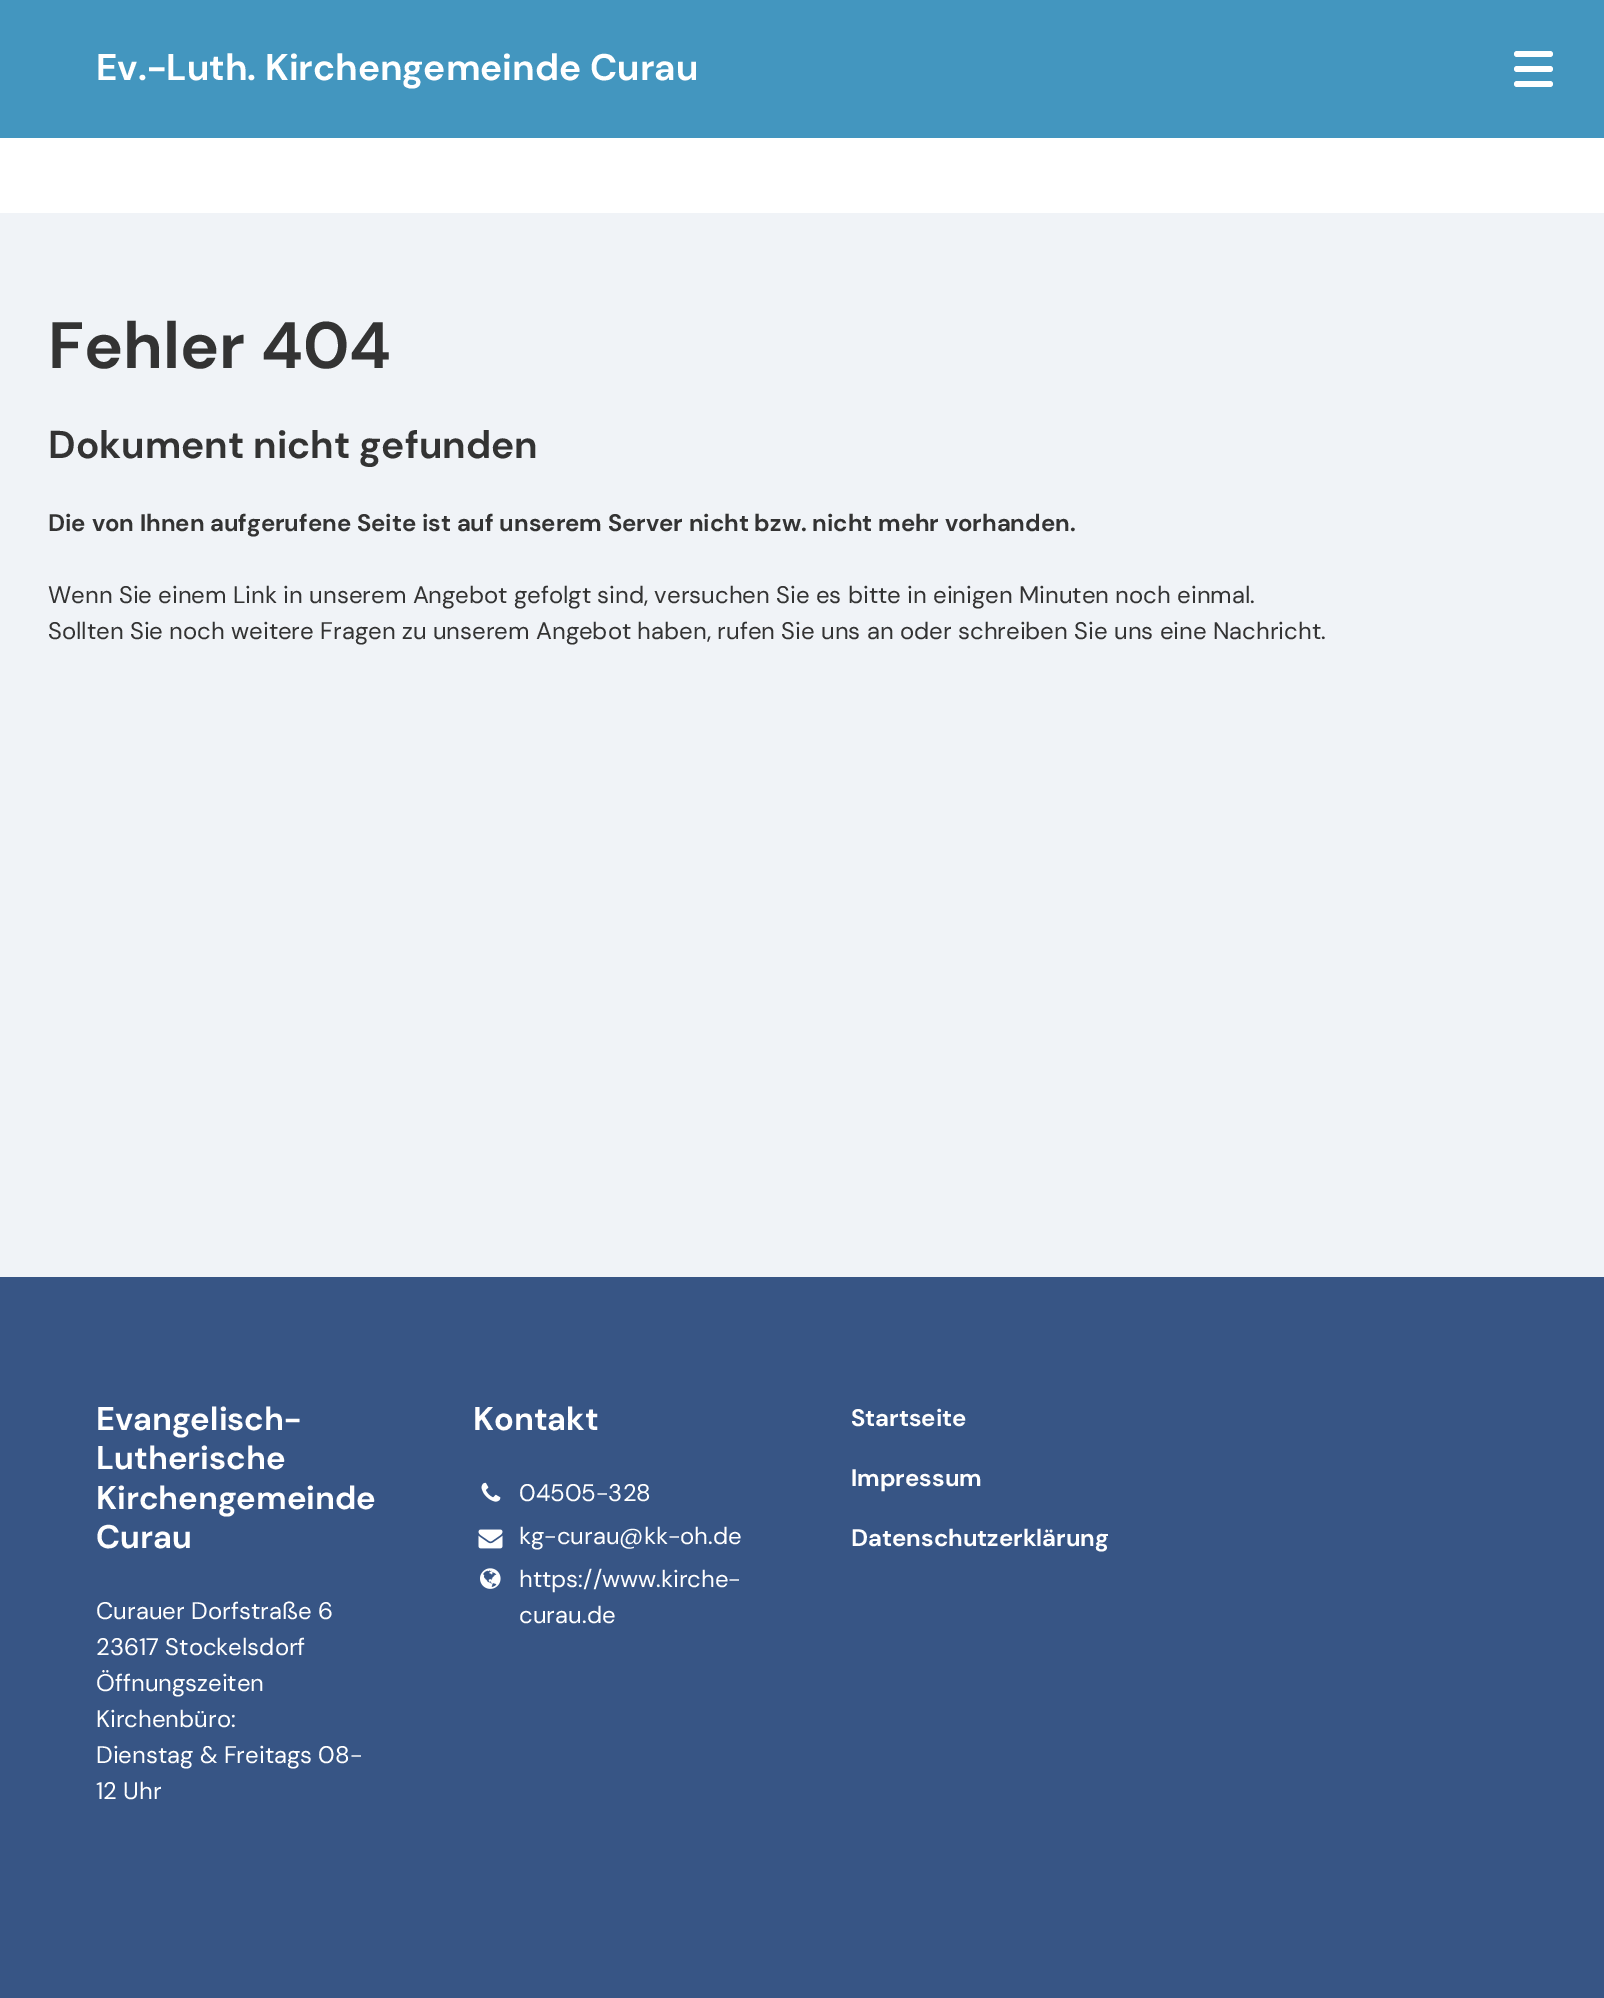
%!PS
<< /PageSize [1604 1998] >> setpagedevice
/f/fill load def
/C { dup -16 bitshift 255 div exch dup -8 bitshift 255 and 255 div exch 255 and 255 div setrgbcolor } def
/F { [ exch dup neg 0 0 3 -1 roll 0 0 ] selectfont } def
/T { moveto show } def
/R { rectfill } def
/Q { 5 dict begin { /r /h /w /y /x } { exch def } forall
  x r add y moveto x w add y 2 copy h add r arct x w add y h add x 1 index r arct
  x y h add x y r arct x y 2 copy exch w add exch r arct closepath end } def
/I { 5 dict begin { /h /w /y /x /name } { exch def } forall
  gsave x y translate w h scale
  w h 8 [w 0 0 h 0 0] name (r) file false 3 colorimage grestore end } def
0 1998 translate 1 -1 scale
4 setmiterlimit
16#FFFFFF C
0 0 1604 1998 R
16#4396BF C
0 0 1604 138 R
/DMSans-Bold 37 F
16#FFFFFF C
(Ev.-Luth. Kirchengemeinde Curau) 96 80 T
1514 66 39 6 3 Q f
1514 51 39 6 3 Q f
1514 81 39 6 3 Q f
16#F0F3F7 C
0 213 1604 1064 R
/DMSans-Bold 65.5 F
16#333333 C
(Fehler 404) 48 368 T
/DMSans-Bold 38.75 F
(Dokument nicht gefunden) 48 458 T
/DMSans-Bold 24 F
(Die von Ihnen aufgerufene Seite ist auf unserem Server nicht bzw. nicht mehr vorhanden.) 48 531 T
/DMSans-Regular 24 F
(Wenn Sie einem Link in unserem Angebot gefolgt sind, versuchen Sie es bitte in einigen Minuten noch einmal.) 48 603 T
(Sollten Sie noch weitere Fragen zu unserem Angebot haben, rufen Sie uns an oder schreiben Sie uns eine Nachricht.) 48 639 T
16#375585 C
0 1277 1604 721 R
/DMSans-Bold 32.75 F
16#FFFFFF C
(Evangelisch-) 96 1430 T
(Lutherische) 96 1469 T
(Kirchengemeinde) 96 1509 T
(Curau) 96 1548 T
/DMSans-Regular 24 F
(Curauer Dorfstraße 6) 96 1619 T
(23617 Stockelsdorf) 96 1655 T
(Öffnungszeiten) 96 1691 T
(Kirchenbüro:) 96 1727 T
(Dienstag & Freitags 08-) 96 1763 T
(12 Uhr) 96 1799 T
/DMSans-Bold 32.75 F
(Kontakt) 473 1430 T
(1.rgb) 481 1482 20 20 I
/DMSans-Regular 24 F
(04505-328) 519 1501 T
(2.rgb) 478 1529 25 20 I
(kg-curau@kk-oh.de) 519 1544 T
(3.rgb) 480 1568 21 21 I
(https://www.kirche-) 519 1587 T
(curau.de) 519 1623 T
/DMSans-Bold 24 F
(Startseite) 851 1426 T
(Impressum) 851 1486 T
(Datenschutzerklärung) 851 1546 T
showpage
